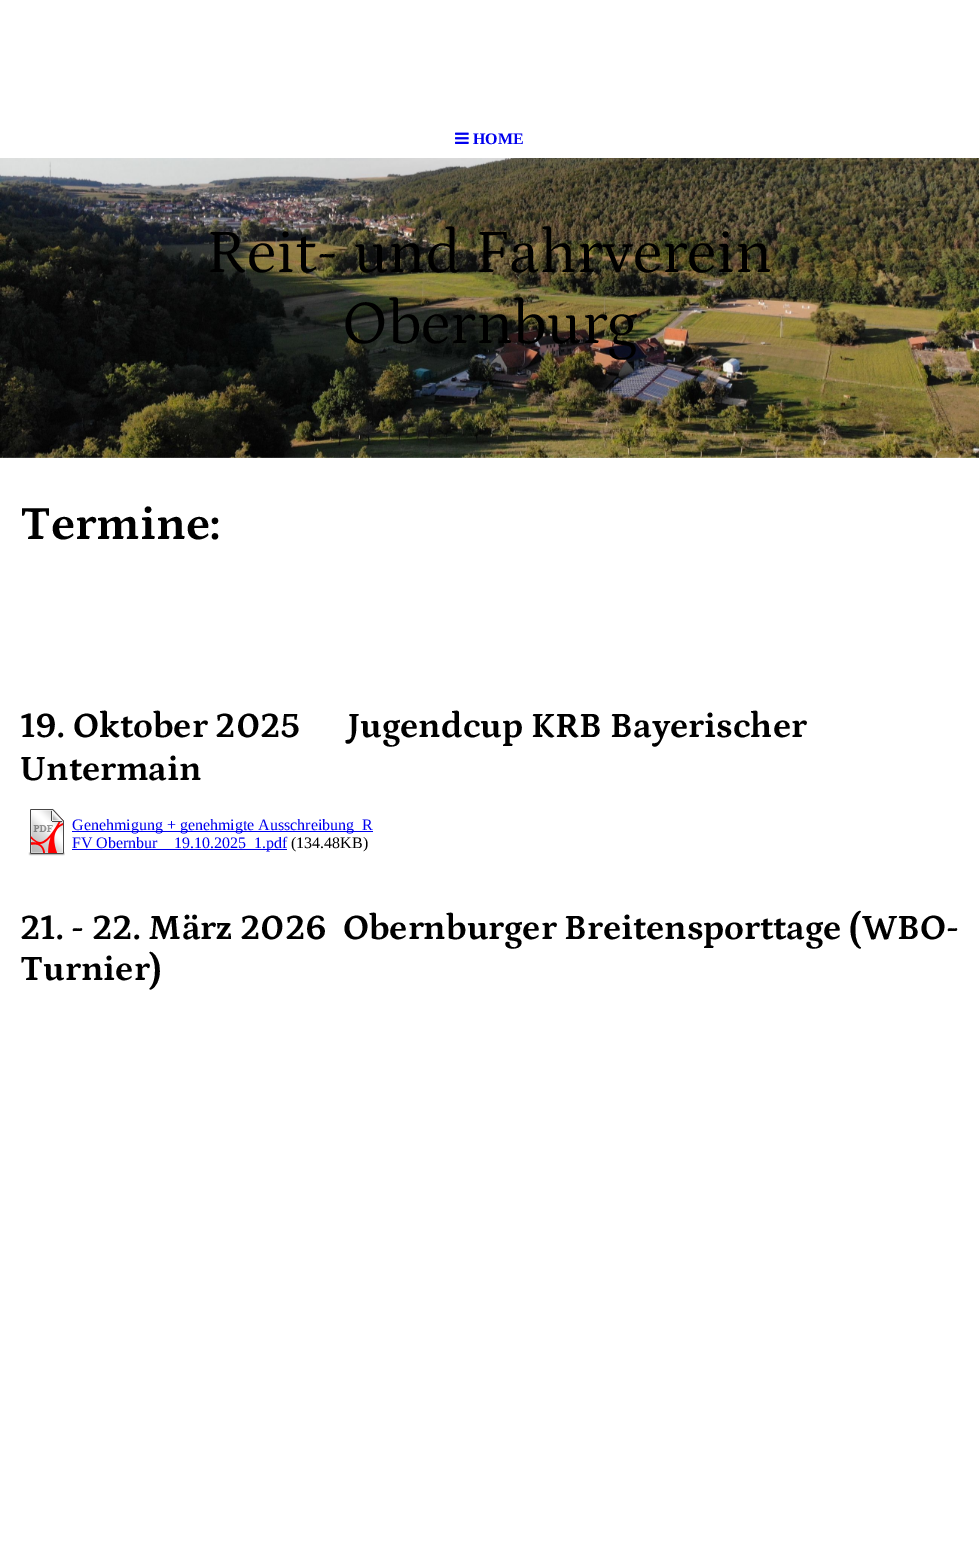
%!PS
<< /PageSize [979 1564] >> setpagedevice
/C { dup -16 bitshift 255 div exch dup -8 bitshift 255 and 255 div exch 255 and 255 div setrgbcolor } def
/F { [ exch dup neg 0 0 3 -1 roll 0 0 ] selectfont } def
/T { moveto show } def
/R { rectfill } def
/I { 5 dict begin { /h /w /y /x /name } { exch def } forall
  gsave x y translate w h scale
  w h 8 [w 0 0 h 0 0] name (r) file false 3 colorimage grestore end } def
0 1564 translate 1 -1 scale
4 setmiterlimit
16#FFFFFF C
0 0 979 1564 R
(1.rgb) 455 132 14 12 I
/LiberationSerif-Bold 16 F
16#0000EE C
(HOME) 473 144 T
(2.rgb) 0 158 979 300 I
/Petrona-Regular 62.5 F
16#000000 C
(Reit- und Fahrverein) 206 272 T
(Obernburg) 342 343 T
/Petrona-Bold 48 F
(Termine:) 20 539 T
/Petrona-Bold 36 F
(19. Oktober 2025      Jugendcup KRB Bayerischer) 20 737 T
(Untermain) 20 780 T
(3.rgb) 28 808 37 48 I
16#0000EE C
72 831 301 1 R
/LiberationSerif-Regular 16 F
(Genehmigung + genehmigte Ausschreibung_R) 72 830 T
(FV Obernbur) 72 848 T
72 849 215 1 R
(19.10.2025_1.pdf) 174 848 T
16#000000 C
(\(134.48KB\)) 291 848 T
/Petrona-Bold 36 F
(21. - 22. März 2026  Obernburger Breitensporttage \(WBO-) 20 939 T
(Turnier\)) 20 980 T
showpage
